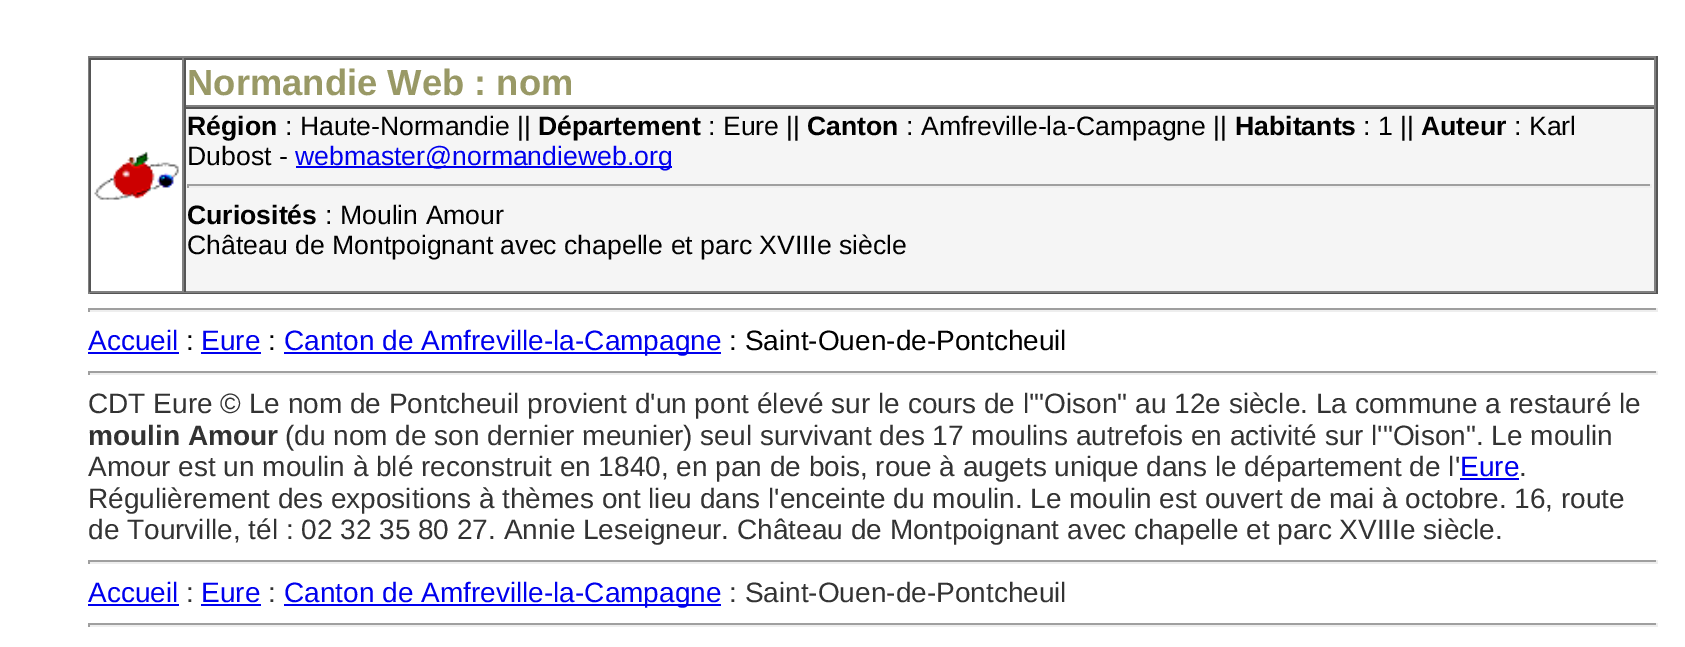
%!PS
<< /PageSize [1685 647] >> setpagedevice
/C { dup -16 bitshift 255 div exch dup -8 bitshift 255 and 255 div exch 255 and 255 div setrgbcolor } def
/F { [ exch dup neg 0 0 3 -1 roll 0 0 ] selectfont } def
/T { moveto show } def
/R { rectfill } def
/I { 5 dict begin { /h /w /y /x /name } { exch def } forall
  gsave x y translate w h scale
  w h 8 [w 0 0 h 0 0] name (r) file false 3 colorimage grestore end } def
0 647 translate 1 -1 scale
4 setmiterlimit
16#FFFFFF C
0 0 1685 647 R
16#808080 C
88 56 1569 2 R
16#555555 C
1656 56 2 238 R
88 292 1569 2 R
16#808080 C
88 56 2 238 R
16#555555 C
89 58 1567 2 R
16#808080 C
182 58 2 234 R
89 291 95 2 R
16#555555 C
89 58 2 234 R
(1.rgb) 94 151 85 49 I
16#808080 C
1654 58 2 49 R
184 105 1472 2 R
16#555555 C
184 58 2 49 R
/LiberationSans-Bold 36.4 F
16#999966 C
(Normandie Web : nom) 187 95 T
16#F5F5F5 C
186 109 1468 182 R
16#555555 C
184 107 1472 2 R
16#808080 C
1654 107 2 185 R
184 291 1472 2 R
16#555555 C
184 107 2 185 R
/LiberationSans-Bold 26.6 F
16#000000 C
(Région) 187 135 T
/LiberationSans-Regular 26.6 F
(: Haute-Normandie ||) 285 135 T
/LiberationSans-Bold 26.6 F
(Département) 538 135 T
/LiberationSans-Regular 26.6 F
(: Eure ||) 708 135 T
/LiberationSans-Bold 26.6 F
(Canton) 807 135 T
/LiberationSans-Regular 26.6 F
(: Amfreville-la-Campagne ||) 906 135 T
/LiberationSans-Bold 26.6 F
(Habitants) 1235 135 T
/LiberationSans-Regular 26.6 F
(: 1 ||) 1363 135 T
/LiberationSans-Bold 26.6 F
(Auteur) 1421 135 T
/LiberationSans-Regular 26.6 F
(: Karl) 1514 135 T
(Dubost -) 187 165 T
16#0000EE C
296 166 376 2 R
(webmaster@normandieweb.org) 295 165 T
16#9F9F9F C
187 184 1465 2 R
16#EEEEEE C
1650 184 2 4 R
187 186 1465 2 R
16#9F9F9F C
187 184 2 4 R
/LiberationSans-Bold 26.6 F
16#000000 C
(Curiosités) 187 224 T
/LiberationSans-Regular 26.6 F
(: Moulin Amour) 325 224 T
(Château de Montpoignant avec chapelle et parc XVIIIe siècle) 187 254 T
16#9F9F9F C
88 308 1569 2 R
16#EEEEEE C
1656 308 2 4 R
88 310 1569 2 R
16#9F9F9F C
88 308 2 4 R
/LiberationSans-Regular 28 F
16#0000EE C
(Accueil) 88 350 T
88 352 91 2 R
16#000000 C
(:) 186 350 T
16#0000EE C
(Eure) 201 350 T
201 352 60 2 R
16#000000 C
(:) 268 350 T
16#0000EE C
284 352 437 2 R
(Canton de Amfreville-la-Campagne) 284 350 T
16#000000 C
(: Saint-Ouen-de-Pontcheuil) 729 350 T
16#9F9F9F C
88 371 1569 2 R
16#EEEEEE C
1656 371 2 4 R
88 373 1569 2 R
16#9F9F9F C
88 371 2 4 R
16#333333 C
(CDT Eure © Le nom de Pontcheuil provient d'un pont élevé sur le cours de l'"Oison" au 12e siècle. La commune a restauré le) 88 413 T
/LiberationSans-Bold 28 F
(moulin Amour) 88 445 T
/LiberationSans-Regular 28 F
(\(du nom de son dernier meunier\) seul survivant des 17 moulins autrefois en activité sur l'"Oison". Le moulin) 285 445 T
(Amour est un moulin à blé reconstruit en 1840, en pan de bois, roue à augets unique dans le département de l') 88 476 T
16#0000EE C
(Eure) 1460 476 T
1460 478 59 2 R
16#333333 C
(.) 1519 476 T
(Régulièrement des expositions à thèmes ont lieu dans l'enceinte du moulin. Le moulin est ouvert de mai à octobre. 16, route) 88 508 T
(de Tourville, tél : 02 32 35 80 27. Annie Leseigneur. Château de Montpoignant avec chapelle et parc XVIIIe siècle.) 88 539 T
16#9F9F9F C
88 560 1569 2 R
16#EEEEEE C
1656 560 2 4 R
88 562 1569 2 R
16#9F9F9F C
88 560 2 4 R
16#0000EE C
(Accueil) 88 602 T
88 604 91 2 R
16#333333 C
(:) 186 602 T
16#0000EE C
(Eure) 201 602 T
201 604 60 2 R
16#333333 C
(:) 268 602 T
16#0000EE C
284 604 437 2 R
(Canton de Amfreville-la-Campagne) 284 602 T
16#333333 C
(: Saint-Ouen-de-Pontcheuil) 729 602 T
16#9F9F9F C
88 623 1569 2 R
16#EEEEEE C
1656 623 2 4 R
88 625 1569 2 R
16#9F9F9F C
88 623 2 4 R
showpage
